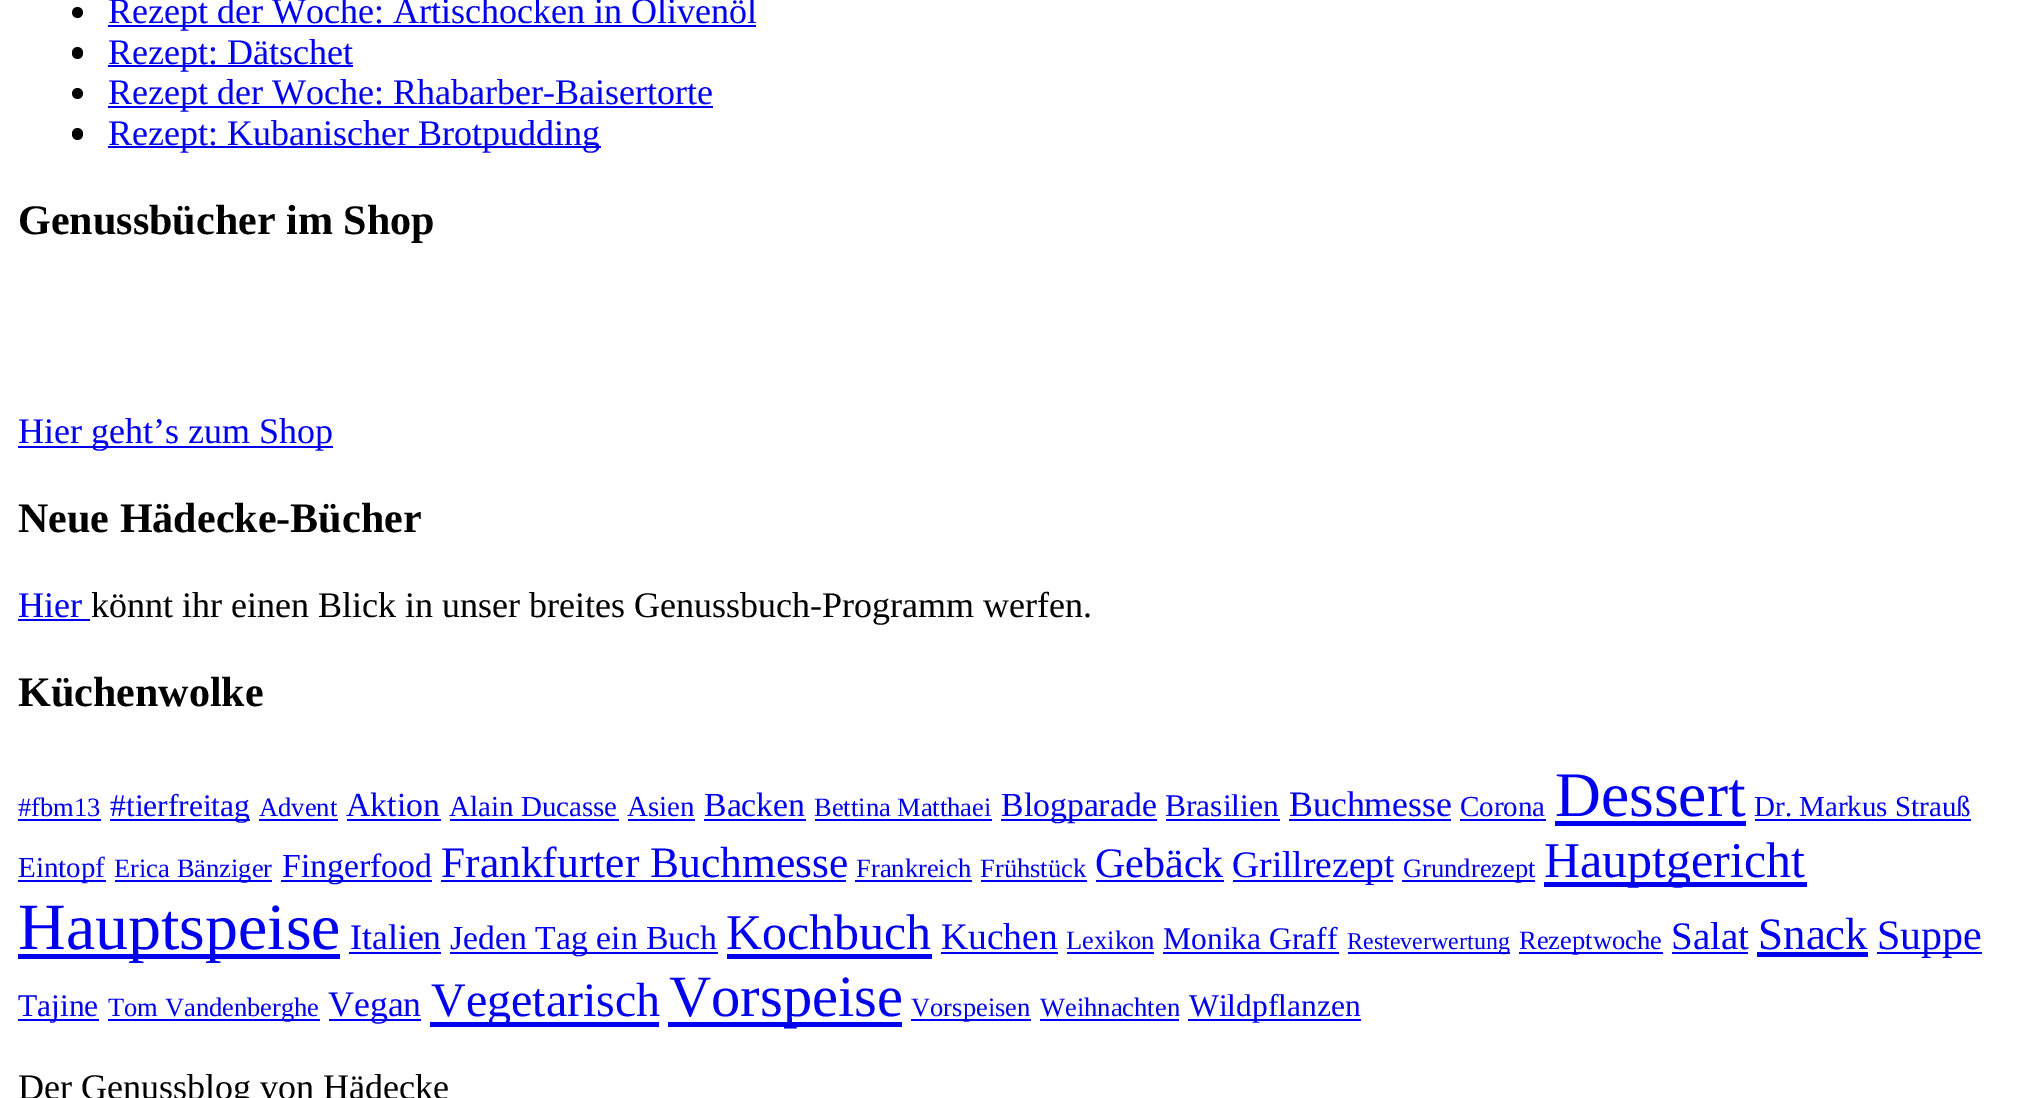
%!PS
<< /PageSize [2026 1098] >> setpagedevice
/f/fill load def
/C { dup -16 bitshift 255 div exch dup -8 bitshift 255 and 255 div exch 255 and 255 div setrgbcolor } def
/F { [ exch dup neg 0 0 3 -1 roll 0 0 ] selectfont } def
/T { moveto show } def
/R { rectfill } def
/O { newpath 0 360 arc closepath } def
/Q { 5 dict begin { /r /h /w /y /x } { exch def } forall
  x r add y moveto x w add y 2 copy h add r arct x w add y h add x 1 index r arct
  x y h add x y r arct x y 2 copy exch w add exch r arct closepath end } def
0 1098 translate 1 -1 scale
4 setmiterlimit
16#FFFFFF C
0 0 2026 1098 R
16#000000 C
77.5 12.5 5.5 O f
16#0000EE C
108 25 648 2 R
/LiberationSerif-Regular 36 F
(Rezept der Woche: Artischocken in Olivenöl) 108 23 T
16#000000 C
72 47 11 12 5.5 Q f
16#0000EE C
108 65 245 2 R
(Rezept: Dätschet) 108 64 T
16#000000 C
77.5 93.5 5.5 O f
16#0000EE C
108 106 605 2 R
(Rezept der Woche: Rhabarber-Baisertorte) 108 104 T
16#000000 C
72 128 11 12 5.5 Q f
16#0000EE C
108 146 493 2 R
(Rezept: Kubanischer Brotpudding) 108 145 T
/LiberationSerif-Bold 42.1 F
16#000000 C
(Genussbücher im Shop) 18 234 T
16#0000EE C
18 446 315 2 R
/LiberationSerif-Regular 36 F
(Hier geht’s zum Shop) 18 443 T
/LiberationSerif-Bold 42.1 F
16#000000 C
(Neue Hädecke-Bücher) 18 532 T
/LiberationSerif-Regular 36 F
16#0000EE C
(Hier) 18 617 T
18 619 72 2 R
16#000000 C
(könnt ihr einen Blick in unser breites Genussbuch-Programm werfen.) 91 617 T
/LiberationSerif-Bold 42.1 F
(Küchenwolke) 18 706 T
/LiberationSerif-Regular 26.5 F
16#0000EE C
(#fbm13) 18 816 T
18 819 83 2 R
110 819 140 2 R
/LiberationSerif-Regular 31.5 F
(#tierfreitag) 110 816 T
/LiberationSerif-Regular 26.5 F
(Advent) 259 816 T
259 819 79 2 R
/LiberationSerif-Regular 33.75 F
(Aktion) 346 816 T
347 819 94 2 R
/LiberationSerif-Regular 29 F
(Alain Ducasse) 449 816 T
450 819 169 2 R
(Asien) 627 816 T
628 819 67 2 R
/LiberationSerif-Regular 33.75 F
(Backen) 704 816 T
704 819 102 2 R
/LiberationSerif-Regular 26.5 F
(Bettina Matthaei) 814 816 T
815 819 177 2 R
1001 819 156 2 R
/LiberationSerif-Regular 33.75 F
(Blogparade) 1001 816 T
/LiberationSerif-Regular 31.5 F
(Brasilien) 1165 816 T
1166 819 114 2 R
/LiberationSerif-Regular 35.75 F
(Buchmesse) 1289 816 T
1289 819 162 2 R
/LiberationSerif-Regular 29 F
(Corona) 1460 816 T
1460 819 86 2 R
/LiberationSerif-Regular 63.5 F
(Dessert) 1555 816 T
1555 821 191 5 R
/LiberationSerif-Regular 29 F
(Dr. Markus Strauß) 1754 816 T
1755 819 216 2 R
18 880 88 2 R
(Eintopf) 18 877 T
115 880 157 2 R
/LiberationSerif-Regular 26.5 F
(Erica Bänziger) 114 877 T
281 880 151 2 R
/LiberationSerif-Regular 33.75 F
(Fingerfood) 282 877 T
/LiberationSerif-Regular 43.5 F
(Frankfurter Buchmesse) 441 877 T
441 880 405 2 R
/LiberationSerif-Regular 26.5 F
(Frankreich) 856 877 T
855 880 117 2 R
(Frühstück) 980 877 T
981 880 106 2 R
/LiberationSerif-Regular 42 F
(Gebäck) 1095 877 T
1096 880 128 2 R
1233 880 160 2 R
/LiberationSerif-Regular 37.5 F
(Grillrezept) 1232 877 T
1402 880 133 2 R
/LiberationSerif-Regular 26.5 F
(Grundrezept) 1403 877 T
1544 882 263 5 R
/LiberationSerif-Regular 50 F
(Hauptgericht) 1544 877 T
18 954 322 5 R
/LiberationSerif-Regular 66 F
(Hauptspeise) 18 949 T
/LiberationSerif-Regular 35.75 F
(Italien) 350 949 T
349 952 92 2 R
450 952 268 2 R
/LiberationSerif-Regular 33.75 F
(Jeden Tag ein Buch) 450 949 T
/LiberationSerif-Regular 50 F
(Kochbuch) 726 949 T
727 954 205 5 R
/LiberationSerif-Regular 37.5 F
(Kuchen) 941 949 T
941 952 117 2 R
/LiberationSerif-Regular 26.5 F
(Lexikon) 1066 949 T
1067 952 87 2 R
/LiberationSerif-Regular 31.5 F
(Monika Graff) 1163 949 T
1163 952 176 2 R
1348 952 162 2 R
/LiberationSerif-Regular 24 F
(Resteverwertung) 1347 949 T
1519 952 144 2 R
/LiberationSerif-Regular 26.5 F
(Rezeptwoche) 1519 949 T
/LiberationSerif-Regular 39 F
(Salat) 1671 949 T
1672 952 76 2 R
/LiberationSerif-Regular 45 F
(Snack) 1758 949 T
1757 952 111 5 R
1877 952 105 2 R
/LiberationSerif-Regular 42 F
(Suppe) 1877 949 T
18 1019 81 2 R
/LiberationSerif-Regular 31.5 F
(Tajine) 18 1016 T
108 1019 212 2 R
/LiberationSerif-Regular 26.5 F
(Tom Vandenberghe) 108 1016 T
329 1019 92 2 R
/LiberationSerif-Regular 35.75 F
(Vegan) 328 1016 T
430 1022 229 5 R
/LiberationSerif-Regular 48 F
(Vegetarisch) 431 1016 T
668 1022 234 5 R
/LiberationSerif-Regular 58.5 F
(Vorspeise) 669 1016 T
911 1019 120 2 R
/LiberationSerif-Regular 26.5 F
(Vorspeisen) 911 1016 T
(Weihnachten) 1040 1016 T
1040 1019 139 2 R
1188 1019 173 2 R
/LiberationSerif-Regular 31.5 F
(Wildpflanzen) 1189 1016 T
/LiberationSerif-Regular 36 F
16#000000 C
(Der Genussblog von Hädecke) 18 1099 T
showpage
